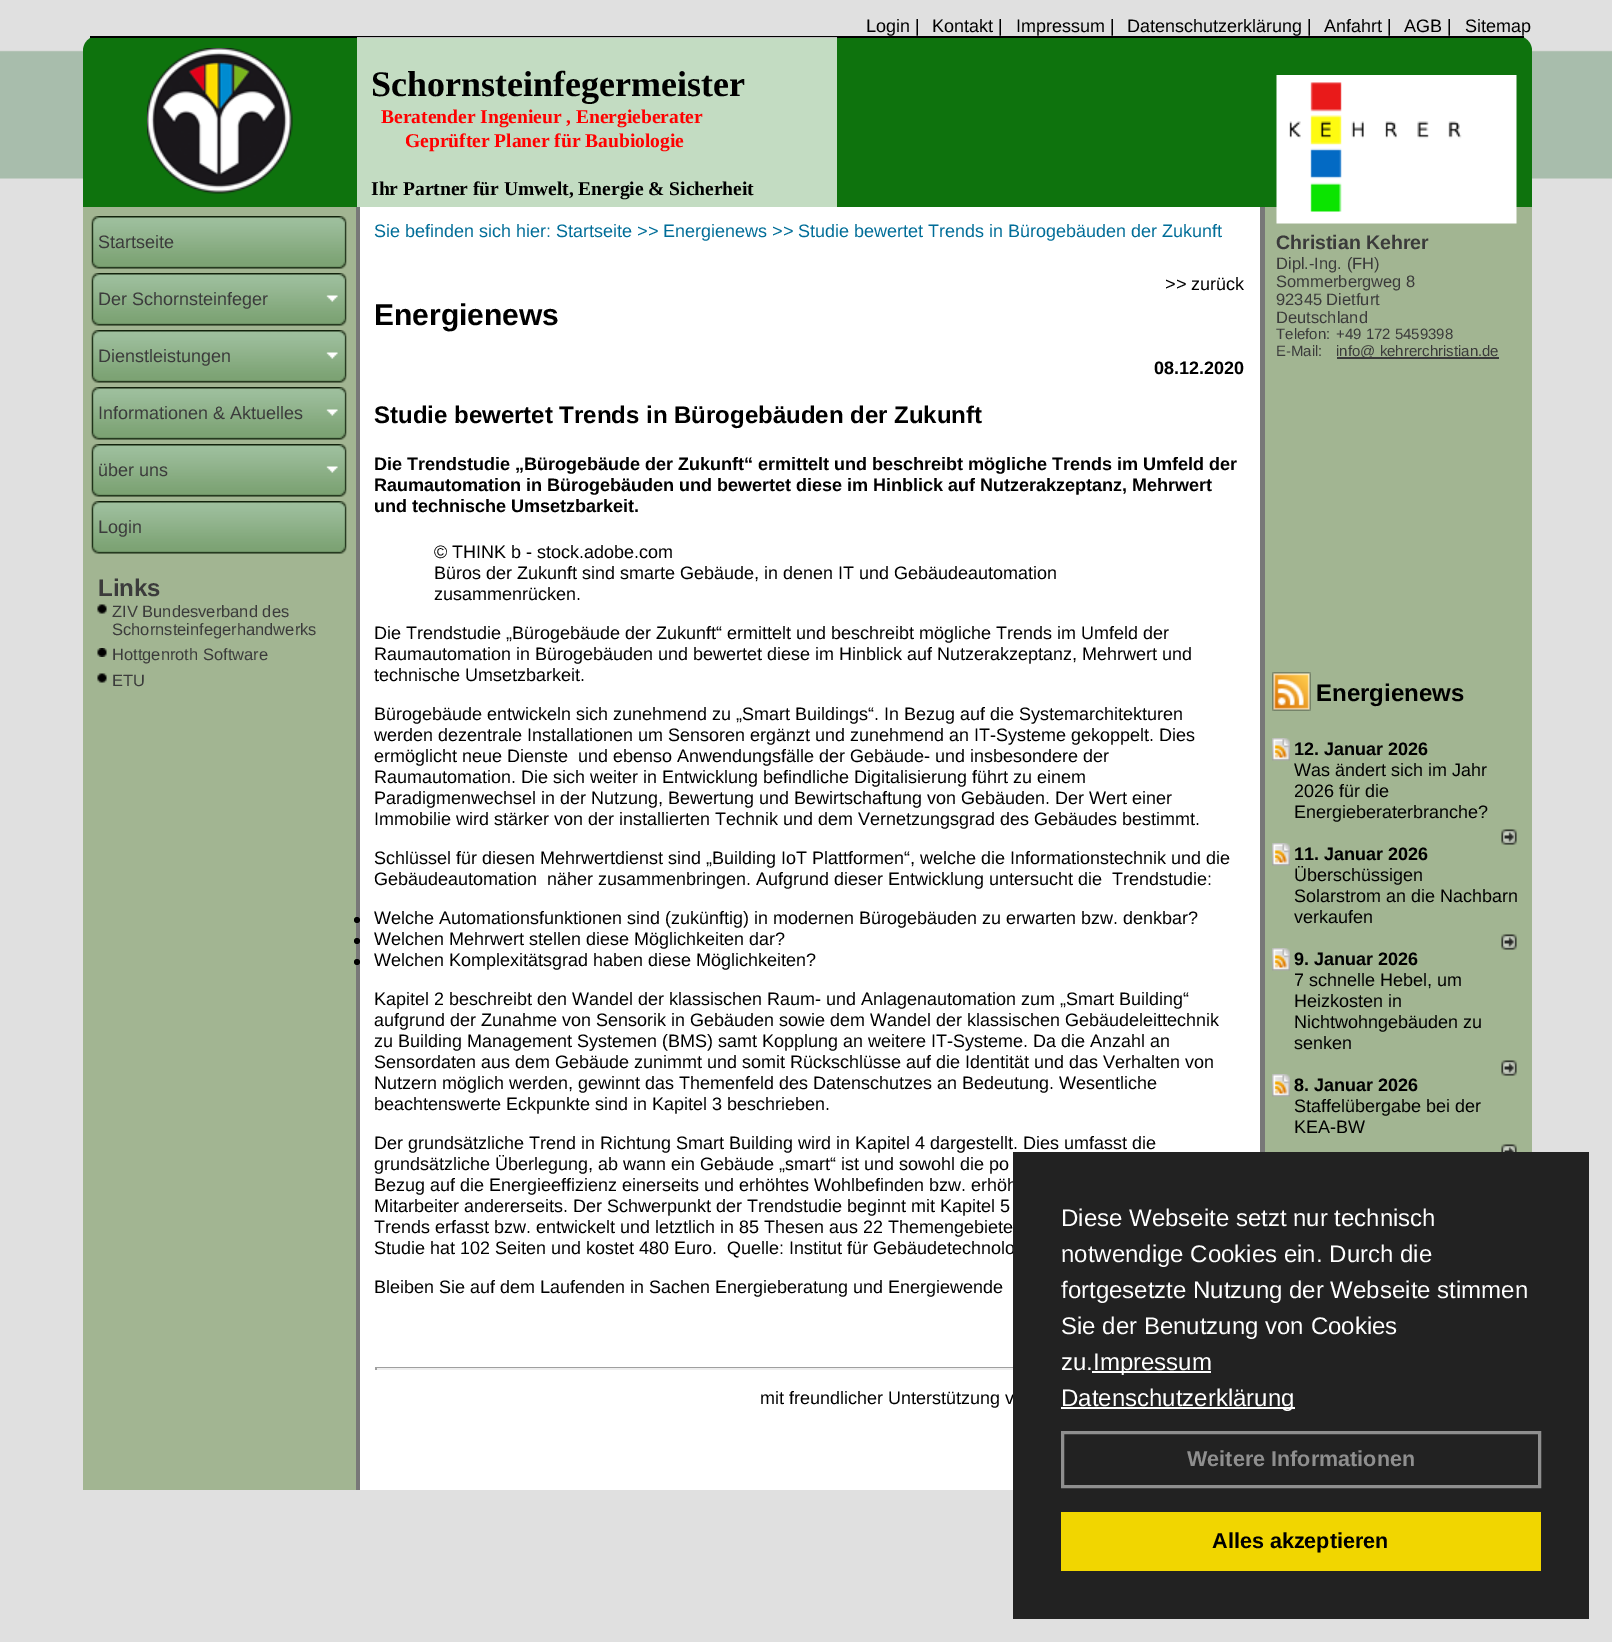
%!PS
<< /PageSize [1612 1642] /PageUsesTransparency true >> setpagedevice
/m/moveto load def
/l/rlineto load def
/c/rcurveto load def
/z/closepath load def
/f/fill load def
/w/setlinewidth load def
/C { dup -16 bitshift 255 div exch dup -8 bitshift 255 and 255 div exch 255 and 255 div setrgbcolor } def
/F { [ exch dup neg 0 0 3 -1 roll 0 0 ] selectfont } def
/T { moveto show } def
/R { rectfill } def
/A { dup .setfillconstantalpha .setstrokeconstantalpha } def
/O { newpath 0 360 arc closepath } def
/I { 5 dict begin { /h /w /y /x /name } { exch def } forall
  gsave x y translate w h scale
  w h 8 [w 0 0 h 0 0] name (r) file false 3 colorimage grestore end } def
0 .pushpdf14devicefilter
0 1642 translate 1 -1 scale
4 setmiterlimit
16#E0E0E0 C
0 0 1612 1642 R
(1.rgb) 0 50 1612 129 I
/LiberationSans-Regular 18 F
16#000000 C
(Login |) 866 32 T
(Kontakt |) 932 32 T
(Impressum |) 1016 32 T
(Datenschutzerklärung |) 1127 32 T
(Anfahrt |) 1324 32 T
(AGB |) 1404 32 T
(Sitemap) 1465 32 T
16#0E730D C
98 36 m 1419 0 l 8.5 0 15 6.5 15 15 c 0 156 l -1449 0 l 0 -156 l 0 -8.5 6.5 -15 15 -15 c z f
16#000000 C
90 36 1434 2 R
(2.rgb) 147 48 146 146 I
0.75 A
16#FFFFFF C
357 37 480 170 R
/LiberationSerif-Bold 36 F
1 A
16#000000 C
(Schornsteinfegermeister) 371 96 T
/LiberationSerif-Bold 19.5 F
16#FF0000 C
(Beratender Ingenieur , Energieberater) 381 123 T
(Geprüfter Planer für Baubiologie) 405 147 T
16#000000 C
(Ihr Partner für Umwelt, Energie & Sicherheit) 371 195 T
16#A2B592 C
83 207 273 1283 R
(3.rgb) 91 216 256 53 I
/LiberationSans-Regular 18 F
16#3B3B3B C
(Startseite) 98 248 T
(3.rgb) 91 273 256 53 I
(Der Schornsteinfeger) 98 305 T
(4.rgb) 326 295 12 7 I
(3.rgb) 91 330 256 53 I
(Dienstleistungen) 98 362 T
(4.rgb) 326 352 12 7 I
(3.rgb) 91 387 256 53 I
(Informationen & Aktuelles) 98 419 T
(4.rgb) 326 409 12 7 I
(3.rgb) 91 444 256 53 I
(über uns) 98 476 T
(4.rgb) 326 466 12 7 I
(3.rgb) 91 501 256 53 I
(Login) 98 533 T
/LiberationSans-Bold 24 F
(Links) 98 596 T
(5.rgb) 97 604 10 10 I
/LiberationSans-Regular 16.5 F
(ZIV Bundesverband des) 112 617 T
(Schornsteinfegerhandwerks) 112 635 T
(6.rgb) 97 648 10 9 I
(Hottgenroth Software) 112 660 T
(5.rgb) 97 673 10 10 I
(ETU) 112 686 T
16#787878 C
356 207 4 1283 R
16#FFFFFF C
360 207 900 1283 R
/LiberationSans-Regular 18 F
16#006D98 C
(Sie befinden sich hier: Startseite >> Energienews >> Studie bewertet Trends in Bürogebäuden der Zukunft) 374 237 T
16#000000 C
(>> zurück) 1165 290 T
/LiberationSans-Bold 30 F
(Energienews) 374 325 T
/LiberationSans-Bold 18 F
(08.12.2020) 1154 374 T
/LiberationSans-Bold 24 F
(Studie bewertet Trends in Bürogebäuden der Zukunft) 374 423 T
/LiberationSans-Bold 18 F
(Die Trendstudie „Bürogebäude der Zukunft“ ermittelt und beschreibt mögliche Trends im Umfeld der) 374 470 T
(Raumautomation in Bürogebäuden und bewertet diese im Hinblick auf Nutzerakzeptanz, Mehrwert) 374 491 T
(und technische Umsetzbarkeit.) 374 512 T
/LiberationSans-Regular 18 F
(© THINK b - stock.adobe.com) 434 558 T
(Büros der Zukunft sind smarte Gebäude, in denen IT und Gebäudeautomation) 434 579 T
(zusammenrücken.) 434 600 T
(Die Trendstudie „Bürogebäude der Zukunft“ ermittelt und beschreibt mögliche Trends im Umfeld der) 374 639 T
(Raumautomation in Bürogebäuden und bewertet diese im Hinblick auf Nutzerakzeptanz, Mehrwert und) 374 660 T
(technische Umsetzbarkeit.) 374 681 T
(Bürogebäude entwickeln sich zunehmend zu „Smart Buildings“. In Bezug auf die Systemarchitekturen) 374 720 T
(werden dezentrale Installationen um Sensoren ergänzt und zunehmend an IT-Systeme gekoppelt. Dies) 374 741 T
(ermöglicht neue Dienste  und ebenso Anwendungsfälle der Gebäude- und insbesondere der) 374 762 T
(Raumautomation. Die sich weiter in Entwicklung befindliche Digitalisierung führt zu einem) 374 783 T
(Paradigmenwechsel in der Nutzung, Bewertung und Bewirtschaftung von Gebäuden. Der Wert einer) 374 804 T
(Immobilie wird stärker von der installierten Technik und dem Vernetzungsgrad des Gebäudes bestimmt.) 374 825 T
(Schlüssel für diesen Mehrwertdienst sind „Building IoT Plattformen“, welche die Informationstechnik und die) 374 864 T
(Gebäudeautomation  näher zusammenbringen. Aufgrund dieser Entwicklung untersucht die  Trendstudie:) 374 885 T
357 920 3 O f
(Welche Automationsfunktionen sind \(zukünftig\) in modernen Bürogebäuden zu erwarten bzw. denkbar?) 374 924 T
357 941 3 O f
(Welchen Mehrwert stellen diese Möglichkeiten dar?) 374 945 T
357 962 3 O f
(Welchen Komplexitätsgrad haben diese Möglichkeiten?) 374 966 T
(Kapitel 2 beschreibt den Wandel der klassischen Raum- und Anlagenautomation zum „Smart Building“) 374 1005 T
(aufgrund der Zunahme von Sensorik in Gebäuden sowie dem Wandel der klassischen Gebäudeleittechnik) 374 1026 T
(zu Building Management Systemen \(BMS\) samt Kopplung an weitere IT-Systeme. Da die Anzahl an) 374 1047 T
(Sensordaten aus dem Gebäude zunimmt und somit Rückschlüsse auf die Identität und das Verhalten von) 374 1068 T
(Nutzern möglich werden, gewinnt das Themenfeld des Datenschutzes an Bedeutung. Wesentliche) 374 1089 T
(beachtenswerte Eckpunkte sind in Kapitel 3 beschrieben.) 374 1110 T
(Der grundsätzliche Trend in Richtung Smart Building wird in Kapitel 4 dargestellt. Dies umfasst die) 374 1149 T
(grundsätzliche Überlegung, ab wann ein Gebäude „smart“ ist und sowohl die po) 374 1170 T
(Bezug auf die Energieeffizienz einerseits und erhöhtes Wohlbefinden bzw. erhöh) 374 1191 T
(Mitarbeiter andererseits. Der Schwerpunkt der Trendstudie beginnt mit Kapitel 5) 374 1212 T
(Trends erfasst bzw. entwickelt und letztlich in 85 Thesen aus 22 Themengebiete) 374 1233 T
(Studie hat 102 Seiten und kostet 480 Euro.  Quelle: Institut für Gebäudetechnolo) 374 1254 T
(Bleiben Sie auf dem Laufenden in Sachen Energieberatung und Energiewende) 374 1293 T
16#9F9F9F C
375 1367 638 1 R
16#EEEEEE C
375 1368 638 2 R
16#9F9F9F C
375 1367 2 3 R
16#000000 C
(mit freundlicher Unterstützung v) 760 1404 T
16#787878 C
1260 207 5 945 R
16#A2B592 C
1265 207 267 945 R
(7.rgb) 1272 672 39 39 I
/LiberationSans-Bold 24 F
16#000000 C
(Energienews) 1316 701 T
(8.rgb) 1272 738 18 23 I
/LiberationSans-Bold 18 F
(12. Januar 2026) 1294 755 T
/LiberationSans-Regular 18 F
(Was ändert sich im Jahr) 1294 776 T
(2026 für die) 1294 797 T
(Energieberaterbranche?) 1294 818 T
(9.rgb) 1501 829 16 16 I
(8.rgb) 1272 843 18 23 I
/LiberationSans-Bold 18 F
(11. Januar 2026) 1294 860 T
/LiberationSans-Regular 18 F
(Überschüssigen) 1294 881 T
(Solarstrom an die Nachbarn) 1294 902 T
(verkaufen) 1294 923 T
(9.rgb) 1501 934 16 16 I
(8.rgb) 1272 948 18 23 I
/LiberationSans-Bold 18 F
(9. Januar 2026) 1294 965 T
/LiberationSans-Regular 18 F
(7 schnelle Hebel, um) 1294 986 T
(Heizkosten in) 1294 1007 T
(Nichtwohngebäuden zu) 1294 1028 T
(senken) 1294 1049 T
(9.rgb) 1501 1060 16 16 I
(8.rgb) 1272 1074 18 23 I
/LiberationSans-Bold 18 F
(8. Januar 2026) 1294 1091 T
/LiberationSans-Regular 18 F
(Staffelübergabe bei der) 1294 1112 T
(KEA-BW) 1294 1133 T
(10.rgb) 1501 1144 16 8 I
(11.rgb) 1276 75 241 149 I
/LiberationSans-Bold 19.5 F
16#3B3B3B C
(Christian Kehrer) 1276 249 T
/LiberationSans-Regular 16.5 F
(Dipl.-Ing. \(FH\)) 1276 269 T
(Sommerbergweg 8) 1276 287 T
(92345 Dietfurt) 1276 305 T
(Deutschland) 1276 323 T
/LiberationSans-Regular 15 F
(Telefon:) 1276 339 T
(+49 172 5459398) 1336 339 T
(E-Mail:) 1276 356 T
1337 357 162 2 R
(info@ kehrerchristian.de) 1336 356 T
16#222222 C
1013 1152 576 467 R
/LiberationSans-Regular 24 F
16#FFFFFF C
(Diese Webseite setzt nur technisch) 1061 1226 T
(notwendige Cookies ein. Durch die) 1061 1262 T
(fortgesetzte Nutzung der Webseite stimmen) 1061 1298 T
(Sie der Benutzung von Cookies) 1061 1334 T
(zu.) 1061 1370 T
1092 1371 119 2 R
(Impressum) 1093 1370 T
1061 1407 234 2 R
(Datenschutzerklärung) 1061 1406 T
16#8F8F8F C
3 w
1062.5 1432.5 477 54 rectstroke
/LiberationSans-Bold 21.6 F
(Weitere Informationen) 1187 1466 T
16#F1D600 C
1061 1512 480 59 R
16#000000 C
(Alles akzeptieren) 1212 1548 T
.poppdf14devicefilter showpage
